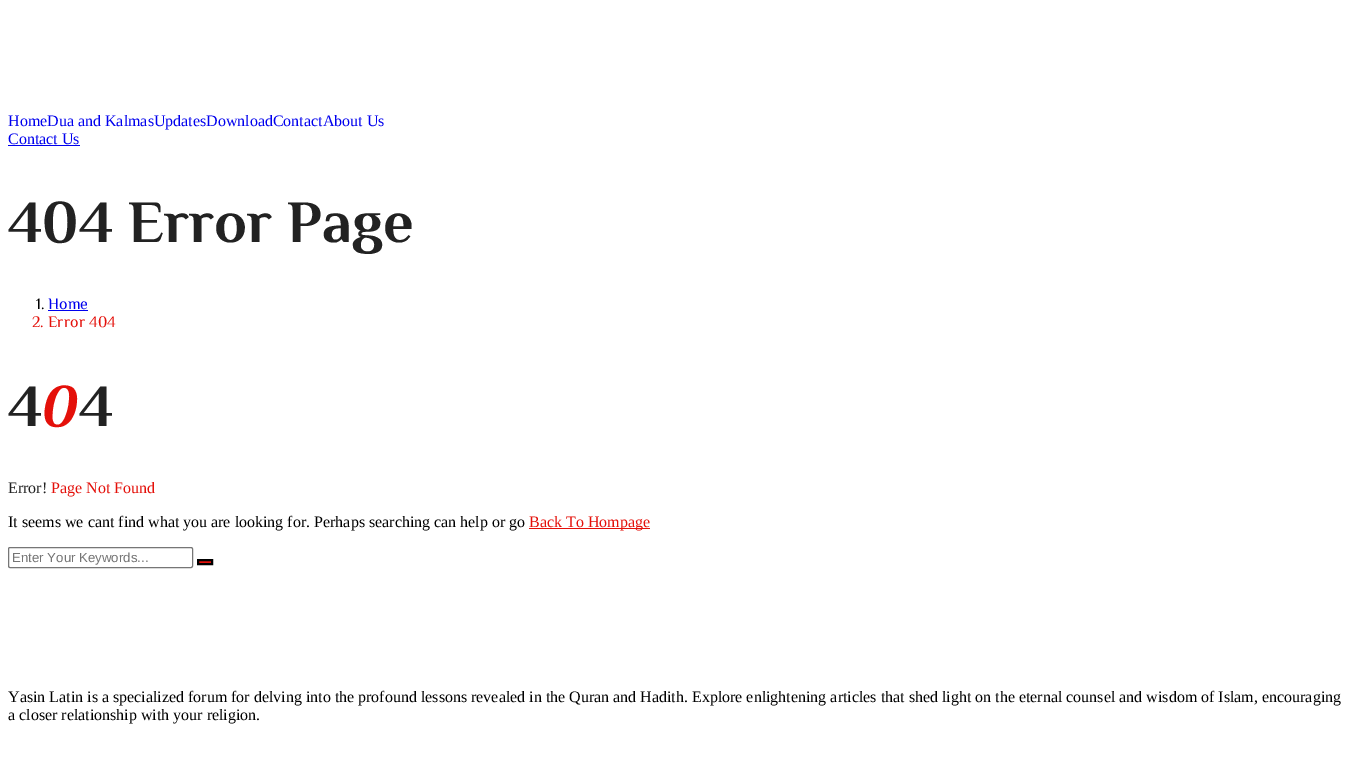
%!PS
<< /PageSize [1349 778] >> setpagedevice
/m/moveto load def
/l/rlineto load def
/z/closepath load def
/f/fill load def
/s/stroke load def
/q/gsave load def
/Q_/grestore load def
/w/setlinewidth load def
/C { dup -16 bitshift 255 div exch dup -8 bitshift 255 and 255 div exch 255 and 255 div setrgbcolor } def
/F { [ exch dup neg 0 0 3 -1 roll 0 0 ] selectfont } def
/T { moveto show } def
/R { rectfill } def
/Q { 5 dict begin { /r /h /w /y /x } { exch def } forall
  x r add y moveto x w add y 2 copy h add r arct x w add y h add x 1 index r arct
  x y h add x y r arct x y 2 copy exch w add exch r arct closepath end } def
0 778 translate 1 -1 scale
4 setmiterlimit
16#FFFFFF C
0 0 1349 778 R
/LiberationSerif-Regular 16 F
16#0000EE C
(HomeDua and KalmasUpdatesDownloadContactAbout Us) 8 126 T
(Contact Us) 8 144 T
8 145 72 1 R
/Philosopher-Bold 60 F
16#222222 C
(404 Error Page) 8 242 T
/Philosopher-Regular 16 F
16#000000 C
(1.) 36 309 T
16#0000EE C
(Home) 48 309 T
48 310 40 1 R
16#E4100A C
(2. Error 404) 32 327 T
/Philosopher-Bold 60 F
16#222222 C
(4) 8 426 T
/Philosopher-BoldItalic 60 F
16#E4100A C
(0) 42 426 T
/Philosopher-Bold 60 F
16#222222 C
(4) 79 426 T
/LiberationSerif-Regular 16 F
(Error!) 8 493 T
16#E4100A C
(Page Not Found) 51 493 T
16#000000 C
(It seems we cant find what you are looking for. Perhaps searching can help or go) 8 527 T
16#E4100A C
529 528 121 1 R
(Back To Hompage) 529 527 T
16#767676 C
8.5 547.5 184 20 1.5 Q s
/LiberationSans-Regular 13.25 F
16#757575 C
(Enter Your Keywords...) 12 562 T
16#E4100A C
198 560 m 14 0 l 0 4 l -14 0 l z q f Q_
16#000000 C
2 w
s
/LiberationSerif-Regular 16 F
(Yasin Latin is a specialized forum for delving into the profound lessons revealed in the Quran and Hadith. Explore enlightening articles that shed light on the eternal counsel and wisdom of Islam, encouraging) 8 702 T
(a closer relationship with your religion.) 8 720 T
showpage
